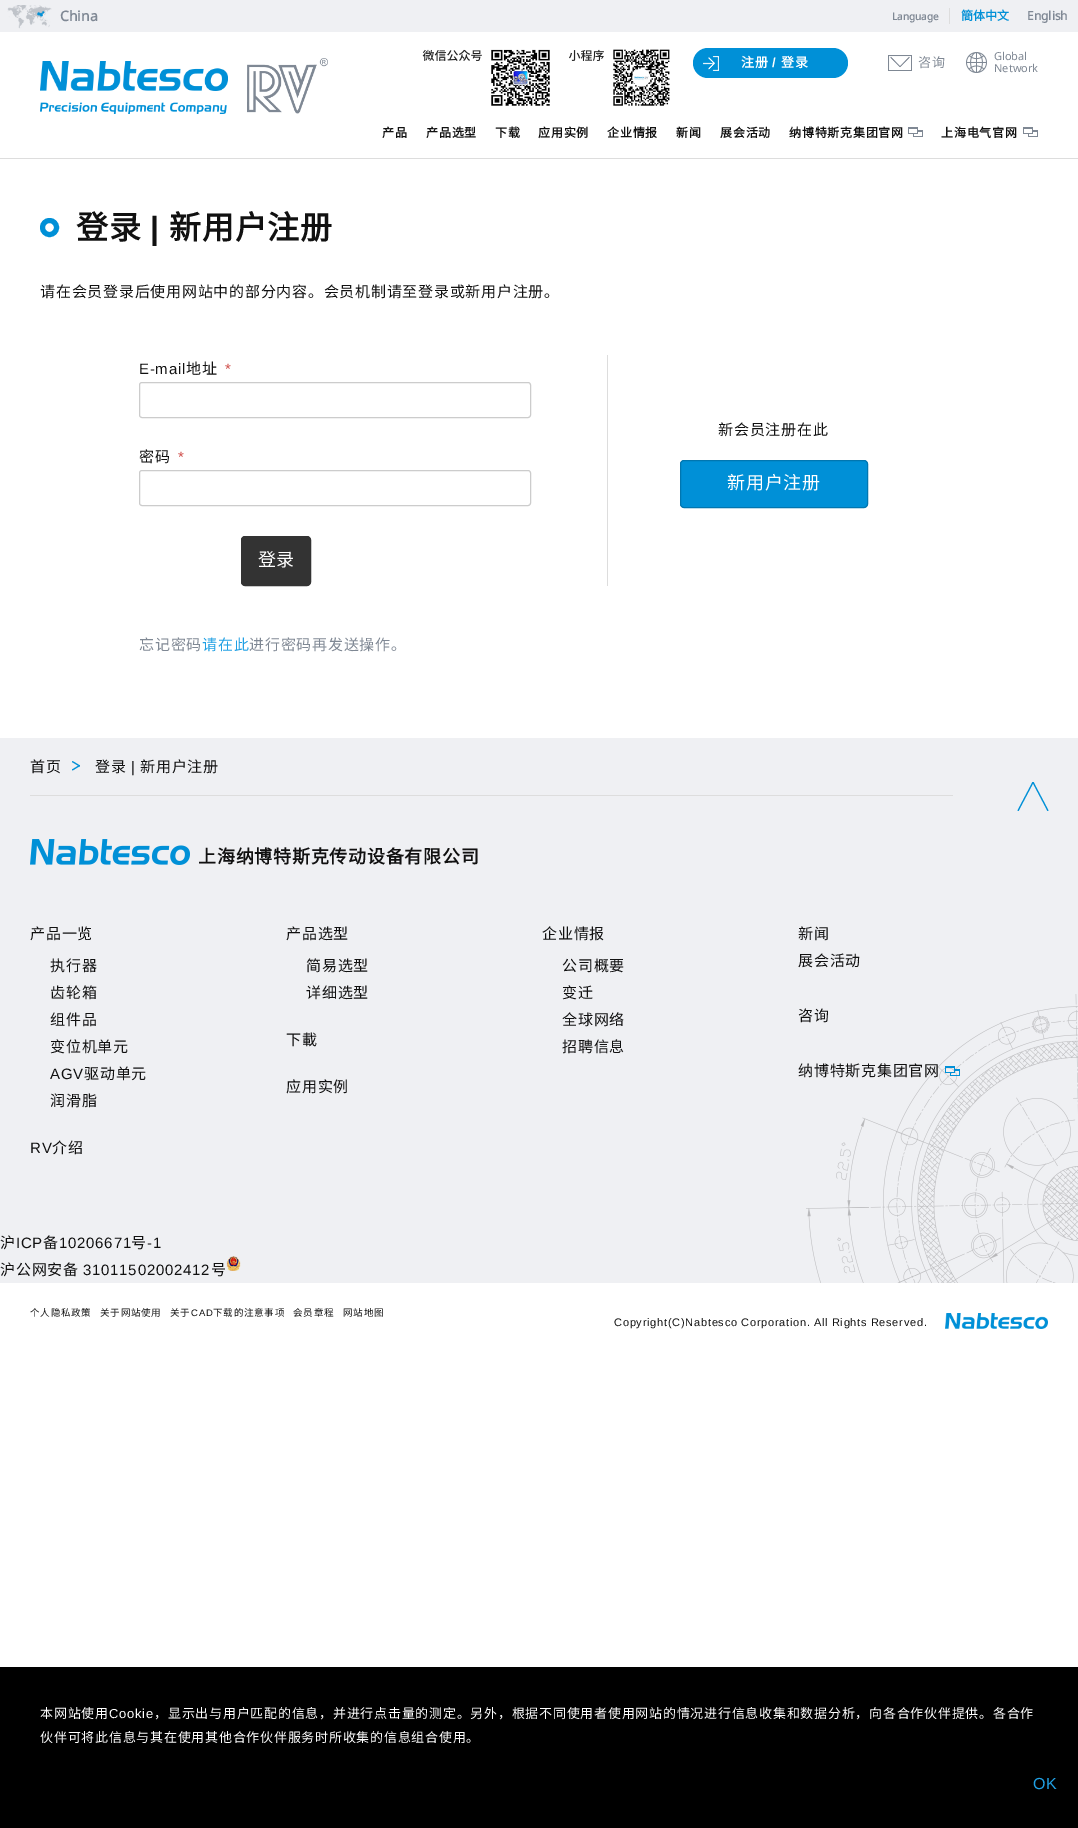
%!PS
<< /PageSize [1078 1828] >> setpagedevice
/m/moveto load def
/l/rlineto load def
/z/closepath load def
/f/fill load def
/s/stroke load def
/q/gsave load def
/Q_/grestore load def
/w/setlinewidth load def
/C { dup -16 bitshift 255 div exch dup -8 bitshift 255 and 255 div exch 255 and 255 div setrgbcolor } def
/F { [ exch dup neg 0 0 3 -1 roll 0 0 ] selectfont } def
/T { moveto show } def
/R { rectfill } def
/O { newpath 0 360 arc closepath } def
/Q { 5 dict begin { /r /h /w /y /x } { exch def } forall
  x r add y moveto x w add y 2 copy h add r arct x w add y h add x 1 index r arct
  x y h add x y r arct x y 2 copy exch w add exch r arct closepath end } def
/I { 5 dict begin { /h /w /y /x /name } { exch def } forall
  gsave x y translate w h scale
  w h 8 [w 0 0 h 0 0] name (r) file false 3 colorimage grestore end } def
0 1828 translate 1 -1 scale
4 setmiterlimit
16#FFFFFF C
0 0 1078 1828 R
16#EFF0F3 C
0 0 1078 32 R
(1.rgb) 7 5 45 24 I
/NotoSans-Bold 14 F
16#7F8894 C
(China) 60 21 T
/NotoSans-Bold 10 F
(Language) 892 20 T
16#DDDDDD C
949 8 1 16 R
/NotoSansCJKSC-Bold 12 F
16#0090D7 C
(簡体中文) 961 20 T
/NotoSans-Bold 12 F
16#7F8894 C
(English) 1027 20 T
16#DDDDDD C
0 158 1078 1 R
(2.rgb) 40 61 188 53 I
(3.rgb) 247 58 81 56 I
(4.rgb) 422 49 248 57 I
16#0090D7 C
693 48 155 30 15 Q f
(5.rgb) 703 56 16 15 I
/NotoSansCJKSC-Bold 13 F
16#FFFFFF C
741 67 m .75 0 (注册) ashow
/LiberationSans-Bold 13 F
772 67 m .75 0 (/) ashow
/NotoSansCJKSC-Bold 13 F
781 67 m .75 0 (登录) ashow
(6.rgb) 888 55 24 16 I
/NotoSansCJKSC-Regular 13 F
16#7F8894 C
918 67 m .75 0 (咨询) ashow
(7.rgb) 966 52 21 21 I
/NotoSans-Regular 11 F
(Global) 994 60 T
(Network) 994 72 T
/NotoSansCJKSC-Bold 12 F
16#111111 C
382 137 m .75 0 (产品) ashow
426 137 m .75 0 (产品选型) ashow
495 137 m .75 0 (下载) ashow
538 137 m .75 0 (应用实例) ashow
607 137 m .75 0 (企业情报) ashow
676 137 m .75 0 (新闻) ashow
720 137 m .75 0 (展会活动) ashow
789 137 m .75 0 (纳博特斯克集团官网) ashow
(8.rgb) 908 127 15 10 I
941 137 m .75 0 (上海电气官网) ashow
(8.rgb) 1023 127 15 10 I
16#0090D7 C
5 w
49.5 227.5 7 O s
/NotoSansCJKSC-Bold 32 F
16#111111 C
76 239 m .75 0 (登录) ashow
/LiberationSans-Bold 32 F
150 239 m .75 0 (|) ashow
/NotoSansCJKSC-Bold 32 F
169 239 m .75 0 (新用户注册) ashow
/NotoSansCJKSC-Regular 15 F
40 297 m .75 0 (请在会员登录后使用网站中的部分内容。会员机制请至登录或新用户注册。) ashow
16#DDDDDD C
607 355 1 231 R
/LiberationSans-Regular 15 F
16#111111 C
139 374 m .75 0 (E-mail) ashow
/NotoSansCJKSC-Regular 15 F
186 374 m .75 0 (地址) ashow
/LiberationSans-Regular 15 F
16#CE4844 C
225 374 m .75 0 (*) ashow
16#CCCCCC C
1 w
139.5 382.5 391 35 2.5 Q s
/NotoSansCJKSC-Regular 15 F
16#111111 C
139 462 m .75 0 (密码) ashow
/LiberationSans-Regular 15 F
16#CE4844 C
178 462 m .75 0 (*) ashow
16#CCCCCC C
139.5 470.5 391 35 2.5 Q s
16#333333 C
241.5 536.5 69 49 3.5 Q q f Q_
s
/NotoSansCJKSC-Regular 18 F
16#FFFFFF C
(登录) 258 566 T
/NotoSansCJKSC-Regular 15 F
16#111111 C
718 435 m .75 0 (新会员注册在此) ashow
16#0090D7 C
680.5 460.5 187 47 3.5 Q q f Q_
16#0176B0 C
s
/NotoSansCJKSC-Regular 18 F
16#FFFFFF C
727 489 m .75 0 (新用户注册) ashow
/NotoSansCJKSC-Regular 15 F
16#7F8894 C
139 650 m .75 0 (忘记密码) ashow
16#20A0E4 C
202 650 m .75 0 (请在此) ashow
16#7F8894 C
249 650 m .75 0 (进行密码再发送操作。) ashow
16#EFF0F3 C
0 738 1078 545 R
16#DDDDDD C
30 795 923 1 R
16#111111 C
30 772 m .75 0 (首页) ashow
16#0090D7 C
72.5 761 m 7.5 4.5 l -.5 1 l -7.5 -4.5 l z f
80 766 m -7.5 4.5 l -.5 -1 l 7.5 -4.5 l z f
16#111111 C
95 772 m .75 0 (登录) ashow
/LiberationSans-Regular 15 F
131 772 m .75 0 (|) ashow
/NotoSansCJKSC-Regular 15 F
140 772 m .75 0 (新用户注册) ashow
(9.rgb) 806 994 272 289 I
16#0090D7 C
1032.5 782.5 m 1 -.5 l 15 28.5 l -1 .5 l z f
1018.5 811 m -1 -.5 l 15 -28.5 l 1 .5 l z f
(10.rgb) 30 839 160 26 I
/NotoSansCJKSC-Bold 18 F
16#111111 C
198 863 m .75 0 (上海纳博特斯克传动设备有限公司) ashow
/NotoSansCJKSC-Regular 15 F
30 939 m .75 0 (产品一览) ashow
50 971 m .75 0 (执行器) ashow
50 998 m .75 0 (齿轮箱) ashow
50 1025 m .75 0 (组件品) ashow
50 1052 m .75 0 (变位机单元) ashow
/LiberationSans-Regular 15 F
50 1079 m .75 0 (AGV) ashow
/NotoSansCJKSC-Regular 15 F
84 1079 m .75 0 (驱动单元) ashow
50 1106 m .75 0 (润滑脂) ashow
/LiberationSans-Regular 15 F
30 1153 m .75 0 (RV) ashow
/NotoSansCJKSC-Regular 15 F
52 1153 m .75 0 (介绍) ashow
286 939 m .75 0 (产品选型) ashow
306 971 m .75 0 (简易选型) ashow
306 998 m .75 0 (详细选型) ashow
286 1045 m .75 0 (下載) ashow
286 1092 m .75 0 (应用实例) ashow
542 939 m .75 0 (企业情报) ashow
562 971 m .75 0 (公司概要) ashow
562 998 m .75 0 (变迁) ashow
562 1025 m .75 0 (全球网络) ashow
562 1052 m .75 0 (招聘信息) ashow
798 939 m .75 0 (新闻) ashow
798 966 m .75 0 (展会活动) ashow
798 1021 m .75 0 (咨询) ashow
798 1076 m .75 0 (纳博特斯克集团官网) ashow
(11.rgb) 945 1066 15 10 I
0 1248 m .75 0 (沪) ashow
/LiberationSans-Regular 15 F
16 1248 m .75 0 (ICP) ashow
/NotoSansCJKSC-Regular 15 F
43 1248 m .75 0 (备) ashow
/LiberationSans-Regular 15 F
59 1248 m .75 0 (10206671) ashow
/NotoSansCJKSC-Regular 15 F
131 1248 m .75 0 (号) ashow
/LiberationSans-Regular 15 F
147 1248 m .75 0 (-1) ashow
/NotoSansCJKSC-Regular 15 F
0 1275 m .75 0 (沪公网安备) ashow
/LiberationSans-Regular 15 F
83 1275 m .75 0 (31011502002412) ashow
/NotoSansCJKSC-Regular 15 F
211 1275 m .75 0 (号) ashow
(12.rgb) 226 1256 15 15 I
/NotoSansCJKSC-Regular 9.5 F
30 1316 m .75 0 (个人隐私政策) ashow
100 1316 m .75 0 (关于网站使用) ashow
170 1316 m .75 0 (关于) ashow
/LiberationSans-Regular 9.5 F
191 1316 m .75 0 (CAD) ashow
/NotoSansCJKSC-Regular 9.5 F
213 1316 m .75 0 (下载的注意事项) ashow
293 1316 m .75 0 (会员章程) ashow
343 1316 m .75 0 (网站地图) ashow
/LiberationSans-Regular 11 F
614 1326 m -.5 0 32 .75 0 (Copyright\(C\)Nabtesco Corporation. All Rights Reserved.) awidthshow
(13.rgb) 945 1313 103 16 I
16#000000 C
0 1667 1078 161 R
/NotoSansCJKSC-Regular 13 F
16#FFFFFF C
40 1718 m .75 0 (本网站使用) ashow
/LiberationSans-Regular 13 F
109 1718 m .75 0 (Cookie) ashow
/NotoSansCJKSC-Regular 13 F
154 1718 m .75 0 (，显示出与用户匹配的信息，并进行点击量的测定。另外，根据不同使用者使用网站的情况进行信息收集和数据分析，向各合作伙伴提供。各合作) ashow
40 1742 m .75 0 (伙伴可将此信息与其在使用其他合作伙伴服务时所收集的信息组合使用。) ashow
/LiberationSans-Regular 16 F
16#20A0E4 C
1033 1789 m .75 0 (OK) ashow
showpage
